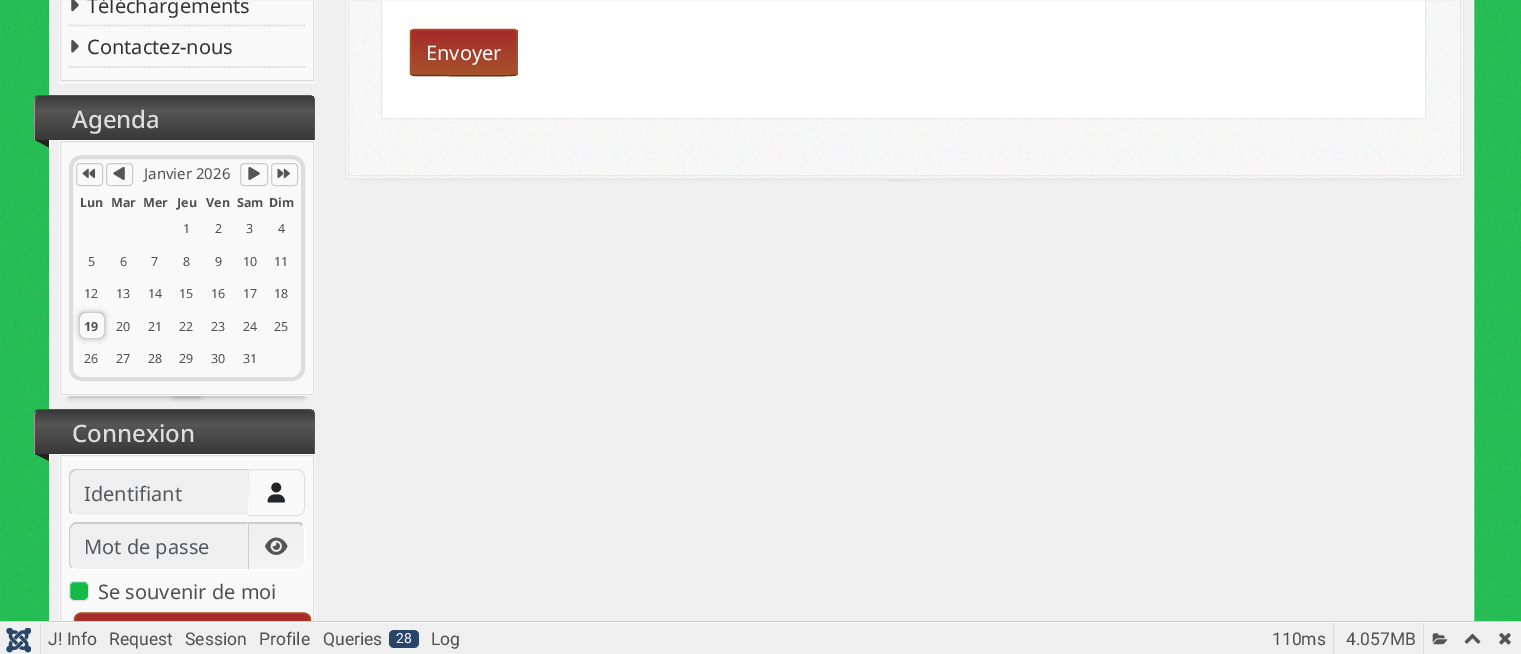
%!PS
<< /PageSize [1521 654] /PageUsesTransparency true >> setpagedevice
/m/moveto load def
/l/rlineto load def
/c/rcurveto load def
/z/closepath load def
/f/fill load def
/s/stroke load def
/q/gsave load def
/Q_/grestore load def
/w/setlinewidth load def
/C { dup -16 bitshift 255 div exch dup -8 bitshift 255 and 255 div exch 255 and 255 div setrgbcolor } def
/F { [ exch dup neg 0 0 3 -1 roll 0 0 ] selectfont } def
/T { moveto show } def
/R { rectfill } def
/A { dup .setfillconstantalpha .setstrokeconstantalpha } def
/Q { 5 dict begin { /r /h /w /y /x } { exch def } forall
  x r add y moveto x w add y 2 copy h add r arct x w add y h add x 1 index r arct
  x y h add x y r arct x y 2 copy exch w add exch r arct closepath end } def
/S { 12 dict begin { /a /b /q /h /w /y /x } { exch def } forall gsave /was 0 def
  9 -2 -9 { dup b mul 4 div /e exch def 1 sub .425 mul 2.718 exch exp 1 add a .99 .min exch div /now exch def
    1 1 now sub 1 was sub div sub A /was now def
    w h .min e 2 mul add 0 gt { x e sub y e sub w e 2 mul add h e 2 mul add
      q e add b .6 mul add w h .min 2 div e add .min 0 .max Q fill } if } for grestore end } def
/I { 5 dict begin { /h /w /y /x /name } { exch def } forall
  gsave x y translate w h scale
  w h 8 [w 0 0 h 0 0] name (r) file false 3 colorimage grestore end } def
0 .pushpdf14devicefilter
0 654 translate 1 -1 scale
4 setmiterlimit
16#14BA46 C
0 0 1521 654 R
(1.rgb) 0 0 1521 621 I
16#EFEFEF C
50 0 1423 621 R
16#FFFFFF C
49.5 -.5 1424 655 rectstroke
59.5 -.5 255 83 rectstroke
16#F9F9F9 C
60.5 -.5 m 253 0 l 0 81 l -253 0 l z q f Q_
16#DDDDDD C
s
(2.rgb) 71 0 8 12 I
16#CCCCCC C
1.2 w
[1.25 1.25] 0 setdash
69 25.5 m 236 0 l s
/NotoSans-Regular 20 F
16#333333 C
(Téléchargements) 87 13 T
(3.rgb) 71 40 8 13 I
16#CCCCCC C
69 67 m 236 0 l s
16#333333 C
(Contactez-nous) 87 54 T
16#383838 C
40 95 m 269 0 l 3.5 0 6 2.5 6 6 c 0 39 l -281 0 l 0 -39 l 0 -3.5 2.5 -6 6 -6 c z f
q
40 95 m 269 0 l 3.5 0 6 2.5 6 6 c 0 39 l -281 0 l 0 -39 l 0 -3.5 2.5 -6 6 -6 c z clip newpath
q 35 96 m 279 0 l 0 44 l -279 0 l z clip newpath
<< /ShadingType 2 /ColorSpace /DeviceRGB /Coords [174 96 174 140] /Extend [true true] /Function << /FunctionType 3 /Domain [0 1] /Functions [<< /FunctionType 2 /Domain [0 1] /C0 [.22 .22 .22] /C1 [.337 .337 .337] /N 1 >> << /FunctionType 2 /Domain [0 1] /C0 [.337 .337 .337] /C1 [.22 .22 .22] /N 1 >>] /Bounds [.33] /Encode [0 1 0 1] >> >> shfill Q_
Q_
16#555555 C
40 95 m 270 0 l 3 2 l -1 -1 -3 -1 -4 -1 c -269 0 l -2 0 -3 1 -4 2 c 0 -1 l 1 -1 2 -2 4 -2 c z f
314 140 m 1 0 l 0 -39 l 0 -1 -1 -3 -2 -4 c 1 1 1 3 1 4 c z f
16#999999 C
34 140 m 1 0 l 0 -39 l 0 -1 0 -3 1 -3 c 0 -1 l -1 1 -2 3 -2 4 c z f
/NotoSans-Medium 24 F
16#DDDDDD C
(Agenda) 72 128 T
16#222222 C
35 140 m 14 0 l 0 7.5 l z f
16#787878 C
70 343 129 53 0 3 1 S
174 343 129 53 0 3 1 S
16#FFFFFF C
1 w
[] 0 setdash
59.5 140.5 255 255 rectstroke
16#F9F9F9 C
60.5 141.5 m 253 0 l 0 253 l -253 0 l z q f Q_
16#DDDDDD C
s
4 w
71 157 232 222 11 Q s
16#CCCCCC C
1 w
76.5 163.5 26 22 3.5 Q s
(4.rgb) 82 168 13 11 I
106.5 163.5 26 22 3.5 Q s
(5.rgb) 113 166 12 14 I
/NotoSans-Regular 15 F
16#505050 C
(Janvier 2026) 144 179 T
16#CCCCCC C
240.5 163.5 27 22 3.5 Q s
(6.rgb) 248 166 12 14 I
271.5 163.5 26 22 3.5 Q s
(7.rgb) 277 168 13 11 I
/NotoSans-Bold 12.5 F
16#505050 C
(Lun) 80 207 T
(Mar) 111 207 T
(Mer) 143 207 T
(Jeu) 177 207 T
(Ven) 206 207 T
(Sam) 237 207 T
(Dim) 269 207 T
/NotoSans-Regular 12.5 F
(1) 183 233 T
(2) 215 233 T
(3) 246 233 T
(4) 278 233 T
(5) 88 266 T
(6) 120 266 T
(7) 151 266 T
(8) 183 266 T
(9) 215 266 T
(10) 243 266 T
(11) 274 266 T
(12) 84 298 T
(13) 116 298 T
(14) 148 298 T
(15) 179 298 T
(16) 211 298 T
(17) 243 298 T
(18) 274 298 T
q
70 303 m 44 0 l 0 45 l -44 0 l z 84 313 m 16 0 l 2 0 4 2 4 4 c 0 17 l 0 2 -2 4 -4 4 c -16 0 l -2 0 -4 -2 -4 -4 c 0 -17 l 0 -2 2 -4 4 -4 c z eoclip newpath
16#999999 C
80 313 24 25 4 3 1 S
Q_
/NotoSans-Bold 12.5 F
(19) 84 331 T
/NotoSans-Regular 12.5 F
(20) 116 331 T
(21) 148 331 T
(22) 179 331 T
(23) 211 331 T
(24) 243 331 T
(25) 274 331 T
(26) 84 363 T
(27) 116 363 T
(28) 148 363 T
(29) 179 363 T
(30) 211 363 T
(31) 243 363 T
16#383838 C
40 409 m 269 0 l 3.5 0 6 2.5 6 6 c 0 39 l -281 0 l 0 -39 l 0 -3.5 2.5 -6 6 -6 c z f
q
40 409 m 269 0 l 3.5 0 6 2.5 6 6 c 0 39 l -281 0 l 0 -39 l 0 -3.5 2.5 -6 6 -6 c z clip newpath
q 35 410 m 279 0 l 0 44 l -279 0 l z clip newpath
<< /ShadingType 2 /ColorSpace /DeviceRGB /Coords [174 410 174 454] /Extend [true true] /Function << /FunctionType 3 /Domain [0 1] /Functions [<< /FunctionType 2 /Domain [0 1] /C0 [.22 .22 .22] /C1 [.337 .337 .337] /N 1 >> << /FunctionType 2 /Domain [0 1] /C0 [.337 .337 .337] /C1 [.22 .22 .22] /N 1 >>] /Bounds [.33] /Encode [0 1 0 1] >> >> shfill Q_
Q_
16#555555 C
40 409 m 269 0 l 1 0 3 1 4 2 c -1 0 l 0 -1 -2 -1 -3 -1 c -269 0 l -2 0 -3 0 -4 1 c 1 -1 2 -2 4 -2 c z f
313 411 m 1 1 2 2 2 4 c 0 39 l -1 0 l 0 -39 l 0 -2 -1 -3 -2 -4 c z f
16#999999 C
35 454 m -1 0 l 0 -39 l 0 -1 1 -3 2 -4 c 0 1 -1 3 -1 4 c z f
/NotoSans-Medium 24 F
16#DDDDDD C
(Connexion) 72 442 T
16#222222 C
35 454 m 14 0 l 0 7 l z f
16#FFFFFF C
59.5 454.5 255 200 rectstroke
16#F9F9F9 C
61 456 252 165 R
16#DDDDDD C
60.5 455.5 253 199 rectstroke
16#EFEFEF C
76 470 m 172 0 l 0 45 l -172 0 l -3.5 0 -6 -2.5 -6 -6 c 0 -33 l 0 -3.5 2.5 -6 6 -6 c z f
16#CCCCCC C
76 469 m -2 0 -4 1 -5 2 c 1 1 l 3 -2 l 173 0 l 0 -1 l z f
16#DEE2E6 C
248.5 469.5 m 48.5 0 l 4 0 7.5 3.5 7.5 7.5 c 0 31 l 0 4 -3.5 7.5 -7.5 7.5 c -48.5 0 l z s
16#FFFFFF C
249 516 m -1 -1 l 0 -45 l 0 -1 l z f
248 516 m -172 0 l -2 0 -4 -1 -5 -2 c 1 -1 l 3 2 l 173 0 l z f
16#CCCCCC C
71 471 m -1 1 -2 3 -2 5 c 0 33 l 0 2 1 4 2 5 c 1 -1 l -1 -1 -2 -3 -2 -4 c 0 -33 l 0 -2 1 -3 2 -4 c z f
/NotoSans-Regular 20 F
16#55585B C
(Identifiant) 84 501 T
(8.rgb) 267 482 18 21 I
16#EFEFEF C
76 524 m 172 0 l 0 45 l -172 0 l -3.5 0 -6 -2.5 -6 -6 c 0 -33 l 0 -3.5 2.5 -6 6 -6 c z f
16#CCCCCC C
76 524 m -1 0 -3 1 -4 2 c -1 -1 l 3 -3 l 175 0 l -2 2 l z f
16#FFFFFF C
249 522 m -2 2 l 1 0 l 0 45 l 1 1 l z f
249 570 m -1 -1 l -172 0 l -2 0 -3 -1 -4 -2 c -1 1 l 1 1 3 2 5 2 c z f
16#CCCCCC C
71 568 m -1 -2 -2 -4 -2 -6 c 0 -32 l 0 -2 1 -4 2 -5 c 1 1 l -1 1 -2 2 -2 4 c 0 32 l 0 2 1 4 2 5 c z f
16#55585B C
(Mot de passe) 84 554 T
16#EFEFEF C
248 523 m 49 0 l 4.5 0 8 3.5 8 8 c 0 31 l 0 4.5 -3.5 8 -8 8 c -49 0 l z f
q
248 523 m 49 0 l 4.5 0 8 3.5 8 8 c 0 31 l 0 4.5 -3.5 8 -8 8 c -49 0 l z clip newpath
q 248 524 m 57 0 l 0 45 l -57 0 l z clip newpath
<< /ShadingType 2 /ColorSpace /DeviceRGB /Coords [276 524 276 569] /Extend [true true] /Function << /FunctionType 2 /Domain [0 1] /C0 [.937 .937 .937] /C1 [.957 .957 .957] /N 1 >> >> shfill Q_
Q_
16#CCCCCC C
249 524 m -1 -2 l 52 0 l 3 2 l -1 2 l -1 -1 -3 -2 -4 -2 c z f
16#FFFFFF C
305 562 m 0 -32 l 0 -2 -1 -4 -2 -6 c -1 2 l 1 1 2 2 2 4 c 0 32 l 0 2 -1 4 -2 5 c 1 1 l 1 -1 2 -3 2 -6 c z f
248 570 m 50 0 l 2 0 4 -1 5 -2 c -1 -1 l -1 1 -3 2 -4 2 c -49 0 l 0 -1 l z f
16#CCCCCC C
249 524 m 0 44 l -1 2 l 0 -47 l z f
(9.rgb) 265 537 23 18 I
16#14BA46 C
69.5 581.5 19 19 4.5 Q q f Q_
16#DEE2E6 C
s
16#505050 C
(Se souvenir de moi) 98 599 T
16#A53A2A C
74 613 237 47 8 Q f
q
74 613 237 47 8 Q clip newpath
q 74 614 m 237 0 l 0 7 l -237 0 l z clip newpath
<< /ShadingType 2 /ColorSpace /DeviceRGB /Coords [193 614 193 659] /Extend [true true] /Function << /FunctionType 2 /Domain [0 1] /C0 [.647 .165 .165] /C1 [.647 .325 .165] /N 1 >> >> shfill Q_
Q_
16#A5532A C
1.2 w
76.5 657.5 m -1.5 -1.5 -2 -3 -2 -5 c 0 -32.5 l 0 -2 .5 -3.5 2 -5 c 1 -1 3 -2 4.5 -2 c 223 0 l 1.5 0 3.5 1 4.5 2 c 1.5 1.5 2 3 2 5 c 0 32.5 l 0 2 -.5 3.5 -2 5 c s
16#787878 C
361 80 555 95 0 3 1 S
891 80 555 95 0 3 1 S
16#F9F9F9 C
346 0 1117 178 R
(10.rgb) 346 0 1117 178 I
16#E9E9E9 C
1 w
345.5 -.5 1118 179 rectstroke
348.5 -.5 1112 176 rectstroke
16#FFFFFF C
381.5 -.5 m 1044 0 l 0 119 l -1044 0 l z q f Q_
16#E9E9E9 C
s
16#A53A2A C
410 29 108 47 4 Q f
q
410 29 108 47 4 Q clip newpath
q 410 30 m 108 0 l 0 45 l -108 0 l z clip newpath
<< /ShadingType 2 /ColorSpace /DeviceRGB /Coords [464 30 464 75] /Extend [true true] /Function << /FunctionType 2 /Domain [0 1] /C0 [.647 .165 .165] /C1 [.647 .325 .165] /N 1 >> >> shfill Q_
Q_
16#68341A C
1.2 w
516 74.5 m -.5 .5 l -2 1.5 -76 .5 -85 .5 c -16.5 0 l -2.5 -1 l s
16#A5532A C
411.5 74.5 m -1 -2 l 0 -40 l 1 -2 l 2.5 -1 l 100 0 l 2 1 l 1 2 l 0 40 l -1 2 l s
16#FFFFFF C
(Envoyer) 426 60 T
0 622 1521 1 R
16#CCCCCC C
0 621 1521 1 R
16#EFEFEF C
41 623 1480 31 R
0 623 40 31 R
(11.rgb) 6 628 25 25 I
16#DDDDDD C
40 623 1 31 R
/Roboto-Regular 17.5 F
16#505050 C
(J! Info) 48 645 T
(Request) 109 645 T
(Session) 185 645 T
(Profile) 259 645 T
(Queries) 323 645 T
16#28466A C
389 630 30 18 5 Q f
/Roboto-Regular 14 F
16#FFFFFF C
(28) 396 643 T
/Roboto-Regular 17.5 F
16#505050 C
(Log) 431 645 T
16#DDDDDD C
1333 623 1 31 R
16#505050 C
(110ms) 1272 645 T
16#DDDDDD C
1423 623 1 31 R
16#505050 C
(4.057MB) 1346 645 T
(12.rgb) 1432 633 16 12 I
(13.rgb) 1464 633 17 11 I
(14.rgb) 1499 633 12 12 I
.poppdf14devicefilter showpage
